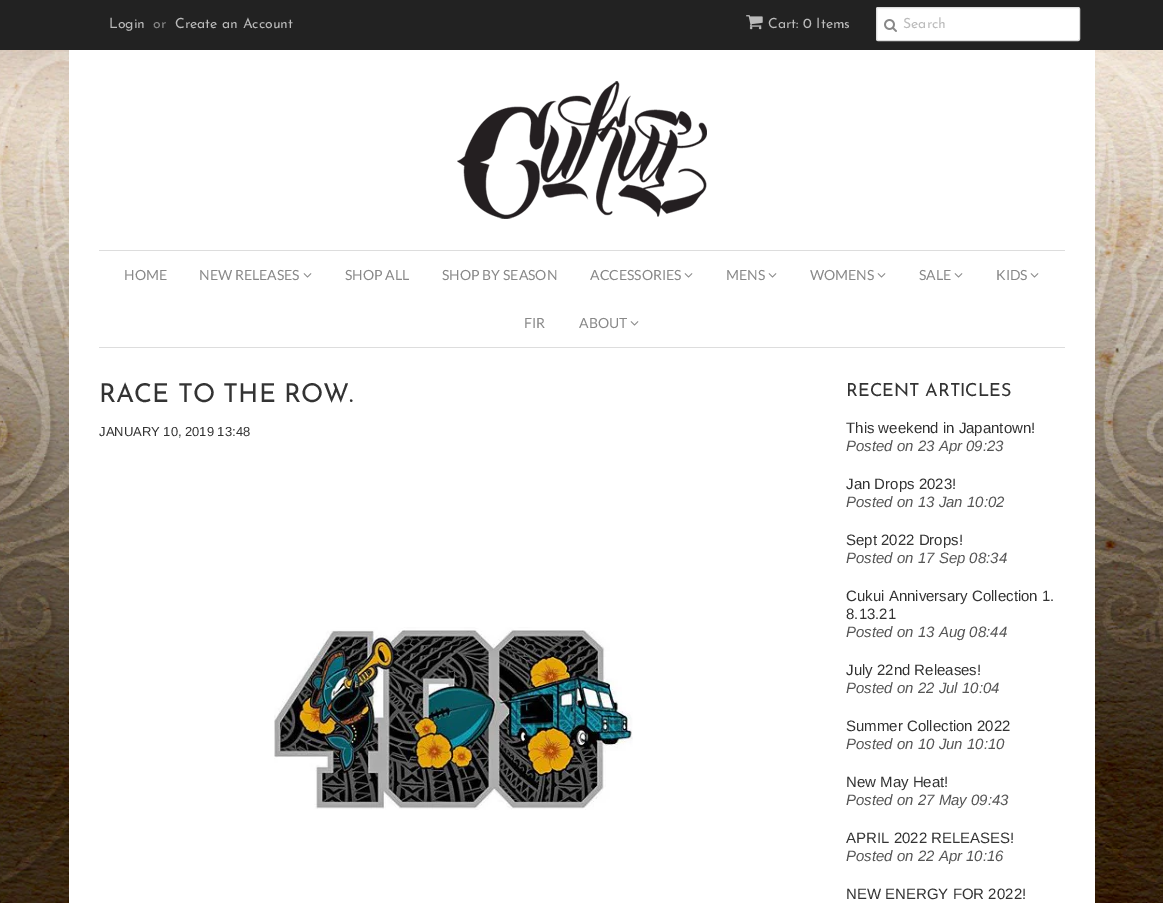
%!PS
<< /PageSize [1163 903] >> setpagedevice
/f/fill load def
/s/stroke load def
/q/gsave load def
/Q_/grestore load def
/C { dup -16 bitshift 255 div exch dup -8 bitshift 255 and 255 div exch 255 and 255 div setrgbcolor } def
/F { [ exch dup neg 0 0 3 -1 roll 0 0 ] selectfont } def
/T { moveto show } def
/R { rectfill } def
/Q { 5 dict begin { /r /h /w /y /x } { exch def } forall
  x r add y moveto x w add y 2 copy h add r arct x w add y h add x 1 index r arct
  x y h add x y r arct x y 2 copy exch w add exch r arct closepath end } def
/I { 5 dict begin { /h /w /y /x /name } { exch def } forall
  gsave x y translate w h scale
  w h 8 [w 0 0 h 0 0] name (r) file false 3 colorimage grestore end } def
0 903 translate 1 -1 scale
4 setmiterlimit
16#FFFFFF C
0 0 1163 903 R
(1.rgb) 0 50 1163 853 I
16#222222 C
0 0 1163 50 R
/JosefinSans-Regular 14 F
16#BBBBBB C
(Login) 109 28 T
16#888888 C
(or) 153 28 T
16#BBBBBB C
(Create an Account) 175 28 T
(2.rgb) 746 15 17 15 I
(Cart: 0 Items) 768 28 T
16#FFFFFF C
876.5 7.5 203 33 1.5 Q q f Q_
16#DDDDDD C
s
(3.rgb) 884 19 13 13 I
16#BBBBBB C
(Search) 903 28 T
16#FFFFFF C
69 50 1026 853 R
(4.rgb) 457 81 250 138 I
16#DDDDDD C
99 250 966 1 R
99 347 966 1 R
/Lato-Regular 14 F
16#888888 C
(HOME) 124 280 T
(NEW RELEASES) 199 280 T
(5.rgb) 303 273 9 5 I
(SHOP ALL) 345 280 T
(SHOP BY SEASON) 442 280 T
(ACCESSORIES) 590 280 T
(5.rgb) 684 273 9 5 I
(MENS) 726 280 T
(5.rgb) 768 273 9 5 I
(WOMENS) 810 280 T
(5.rgb) 877 273 9 5 I
(SALE) 919 280 T
(5.rgb) 954 273 9 5 I
(KIDS) 996 280 T
(5.rgb) 1030 273 9 5 I
(FIR) 524 328 T
(ABOUT) 579 328 T
(5.rgb) 630 321 9 5 I
/JosefinSans-Regular 26 F
16#333333 C
(RACE TO THE ROW.) 99 402 T
/LiberationSans-Regular 13 F
(JANUARY 10, 2019 13:48) 99 436 T
(6.rgb) 274 627 359 183 I
/JosefinSans-Regular 18 F
(RECENT ARTICLES) 846 396 T
/LiberationSans-Regular 15 F
(This weekend in Japantown!) 846 433 T
/LiberationSans-Italic 15 F
16#555555 C
(Posted on 23 Apr 09:23) 846 451 T
/LiberationSans-Regular 15 F
16#333333 C
(Jan Drops 2023!) 846 489 T
/LiberationSans-Italic 15 F
16#555555 C
(Posted on 13 Jan 10:02) 846 507 T
/LiberationSans-Regular 15 F
16#333333 C
(Sept 2022 Drops!) 846 545 T
/LiberationSans-Italic 15 F
16#555555 C
(Posted on 17 Sep 08:34) 846 563 T
/LiberationSans-Regular 15 F
16#333333 C
(Cukui Anniversary Collection 1.) 846 601 T
(8.13.21) 846 619 T
/LiberationSans-Italic 15 F
16#555555 C
(Posted on 13 Aug 08:44) 846 637 T
/LiberationSans-Regular 15 F
16#333333 C
(July 22nd Releases!) 846 675 T
/LiberationSans-Italic 15 F
16#555555 C
(Posted on 22 Jul 10:04) 846 693 T
/LiberationSans-Regular 15 F
16#333333 C
(Summer Collection 2022) 846 731 T
/LiberationSans-Italic 15 F
16#555555 C
(Posted on 10 Jun 10:10) 846 749 T
/LiberationSans-Regular 15 F
16#333333 C
(New May Heat!) 846 787 T
/LiberationSans-Italic 15 F
16#555555 C
(Posted on 27 May 09:43) 846 805 T
/LiberationSans-Regular 15 F
16#333333 C
(APRIL 2022 RELEASES!) 846 843 T
/LiberationSans-Italic 15 F
16#555555 C
(Posted on 22 Apr 10:16) 846 861 T
/LiberationSans-Regular 15 F
16#333333 C
(NEW ENERGY FOR 2022!) 846 899 T
showpage
